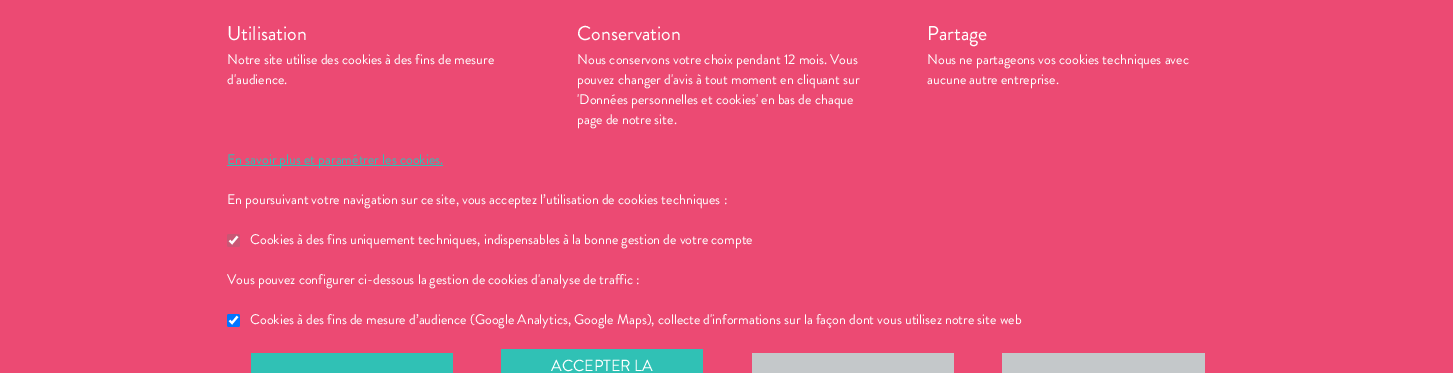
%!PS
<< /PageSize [1453 373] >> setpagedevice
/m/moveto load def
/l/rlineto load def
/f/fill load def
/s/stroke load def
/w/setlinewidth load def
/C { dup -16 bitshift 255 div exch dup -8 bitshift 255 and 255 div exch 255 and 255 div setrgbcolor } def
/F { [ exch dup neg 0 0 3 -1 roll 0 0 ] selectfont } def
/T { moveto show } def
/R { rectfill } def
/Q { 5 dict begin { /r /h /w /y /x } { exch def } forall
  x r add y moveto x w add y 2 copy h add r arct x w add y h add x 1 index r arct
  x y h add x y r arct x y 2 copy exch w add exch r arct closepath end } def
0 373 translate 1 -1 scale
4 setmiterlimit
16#EC4A73 C
0 0 1453 373 R
/BrandonGrotesque-Regular 20 F
16#FFFFFF C
(Utilisation) 227 40 T
/BrandonGrotesque-Regular 14 F
(Notre site utilise des cookies à des fins de mesure) 227 64 T
(d'audience.) 227 84 T
/BrandonGrotesque-Regular 20 F
(Conservation) 577 40 T
/BrandonGrotesque-Regular 14 F
(Nous conservons votre choix pendant 12 mois. Vous) 577 64 T
(pouvez changer d'avis à tout moment en cliquant sur) 577 84 T
('Données personnelles et cookies' en bas de chaque) 577 104 T
(page de notre site.) 577 124 T
/BrandonGrotesque-Regular 20 F
(Partage) 927 40 T
/BrandonGrotesque-Regular 14 F
(Nous ne partageons vos cookies techniques avec) 927 64 T
(aucune autre entreprise.) 927 84 T
16#30C1B5 C
227 165 216 1 R
(En savoir plus et paramétrer les cookies.) 227 164 T
16#FFFFFF C
(En poursuivant votre navigation sur ce site, vous acceptez l’utilisation de cookies techniques :) 227 204 T
16#C95774 C
227 234 13 13 2 Q f
16#FFFFFF C
2.1 w
229.5 240.5 m 2.5 2.5 l 5.5 -6.5 l s
(Cookies à des fins uniquement techniques, indispensables à la bonne gestion de votre compte) 250 244 T
(Vous pouvez configurer ci-dessous la gestion de cookies d'analyse de traffic :) 227 284 T
16#0075FF C
227 314 13 13 2 Q f
16#FFFFFF C
229.5 320.5 m 2.5 2.5 l 5.5 -6.5 l s
(Cookies à des fins de mesure d’audience \(Google Analytics, Google Maps\), collecte d'informations sur la façon dont vous utilisez notre site web) 250 324 T
16#30C1B5 C
251 353 202 20 R
501 349 202 24 R
/BrandonGrotesque-Regular 16 F
16#FFFFFF C
(ACCEPTER LA) 551 371 T
16#C4C8CA C
752 353 202 20 R
1002 353 203 20 R
showpage
